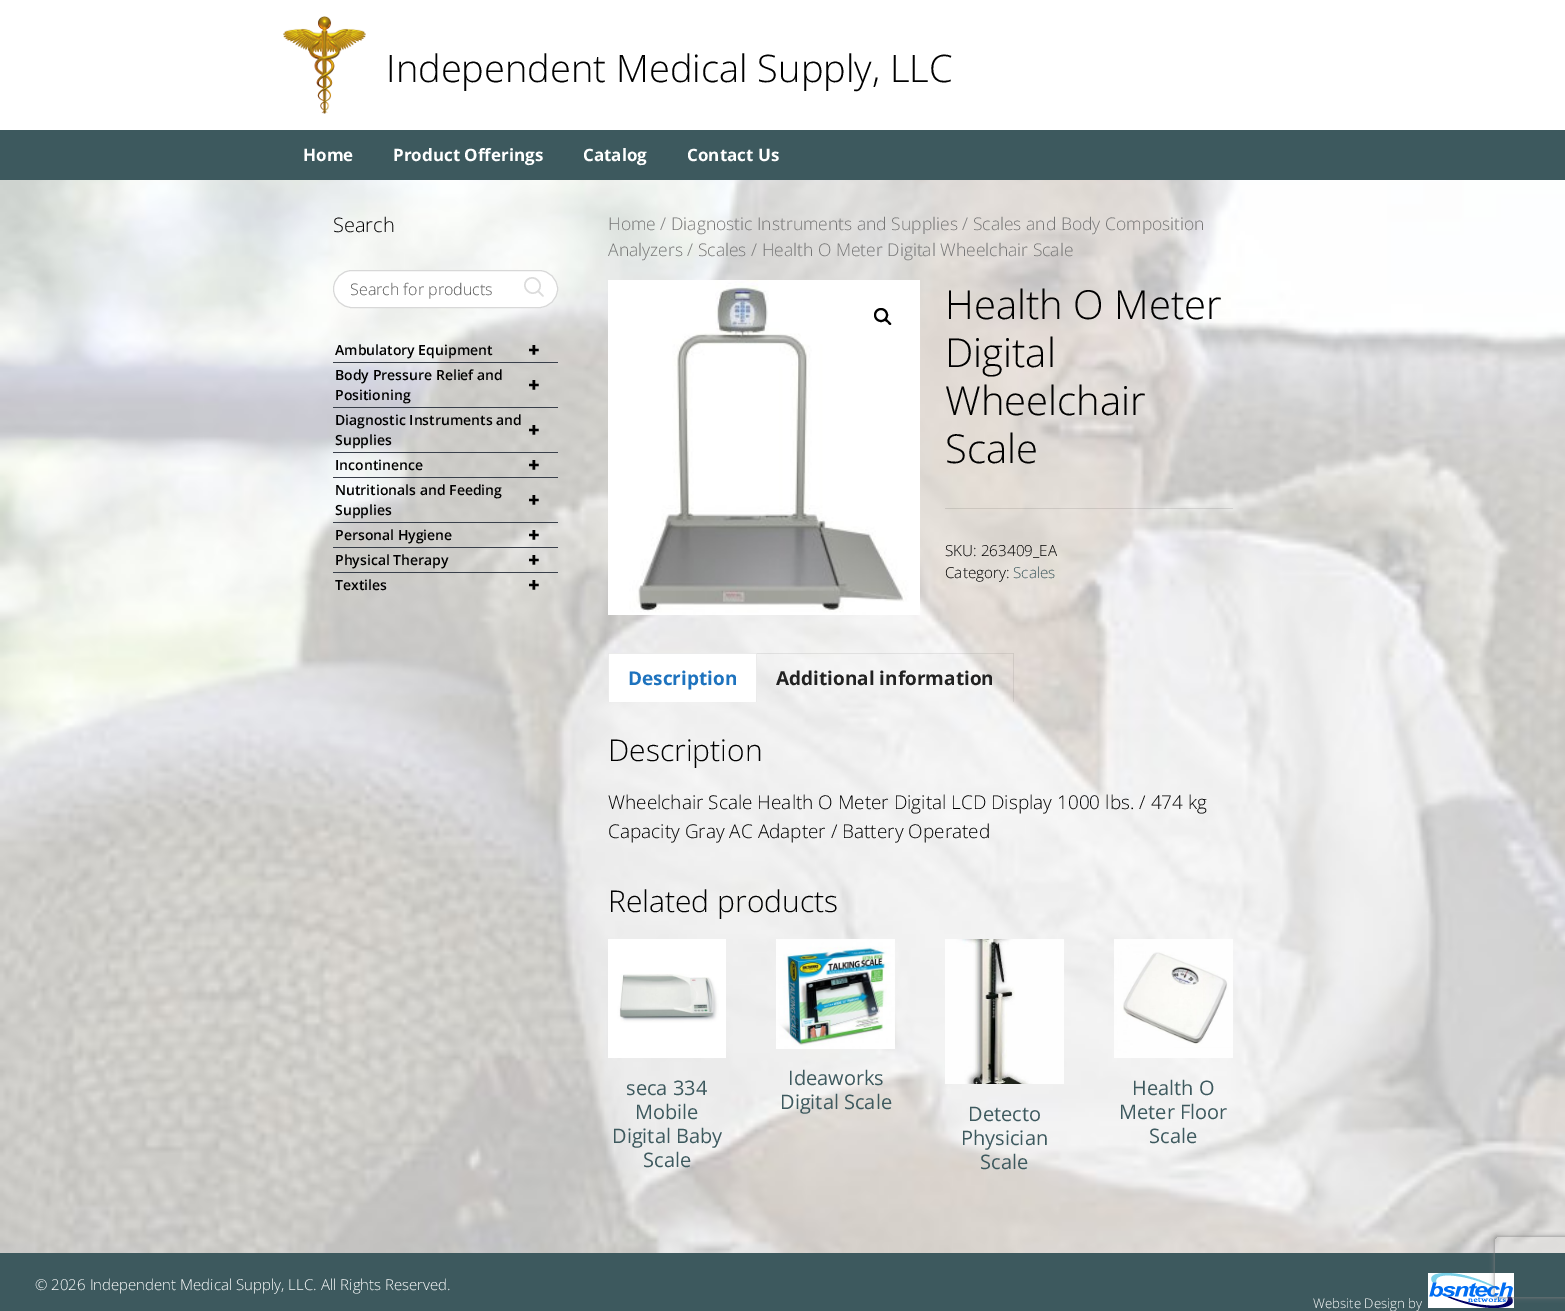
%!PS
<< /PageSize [1565 1311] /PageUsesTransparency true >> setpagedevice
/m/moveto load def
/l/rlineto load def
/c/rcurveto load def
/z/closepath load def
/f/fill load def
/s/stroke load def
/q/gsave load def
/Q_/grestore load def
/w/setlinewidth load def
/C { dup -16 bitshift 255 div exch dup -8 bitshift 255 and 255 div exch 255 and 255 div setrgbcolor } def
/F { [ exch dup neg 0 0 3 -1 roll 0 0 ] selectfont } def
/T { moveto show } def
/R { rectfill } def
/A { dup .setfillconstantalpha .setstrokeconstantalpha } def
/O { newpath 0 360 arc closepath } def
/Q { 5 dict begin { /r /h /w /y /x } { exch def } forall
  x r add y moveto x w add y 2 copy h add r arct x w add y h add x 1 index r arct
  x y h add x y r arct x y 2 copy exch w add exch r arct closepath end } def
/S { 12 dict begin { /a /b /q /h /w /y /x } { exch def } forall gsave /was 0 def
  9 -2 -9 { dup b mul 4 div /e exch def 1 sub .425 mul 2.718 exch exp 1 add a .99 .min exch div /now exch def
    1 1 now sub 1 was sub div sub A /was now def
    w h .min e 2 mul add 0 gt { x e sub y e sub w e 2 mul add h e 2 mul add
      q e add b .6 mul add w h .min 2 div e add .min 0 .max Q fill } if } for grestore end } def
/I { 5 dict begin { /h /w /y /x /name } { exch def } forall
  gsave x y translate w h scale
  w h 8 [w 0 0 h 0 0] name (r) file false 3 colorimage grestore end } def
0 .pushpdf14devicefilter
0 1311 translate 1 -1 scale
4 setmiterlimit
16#FFFFFF C
0 0 1565 1311 R
(1.rgb) 0 180 1565 1073 I
(2.rgb) 283 16 83 98 I
/OpenSans-Light 38 F
16#000000 C
(Independent Medical Supply, LLC) 386 82 T
16#3D595E C
0 130 1565 50 R
/OpenSans-Bold 17 F
16#FFFFFF C
(Home) 303 161 T
(Product Offerings) 393 161 T
(Catalog) 583 161 T
(Contact Us) 687 161 T
/OpenSans-Light 20 F
16#000000 C
(Search) 333 232 T
16#FFFFFF C
333.5 270.5 224 37 18.5 Q q f Q_
16#D8D8D8 C
s
/OpenSans-Light 16 F
16#575757 C
(Search for products) 350 295 T
16#DCDCDC C
1.5 w
1 setlinecap
1 setlinejoin
543 296 m -5 -5 l 538 291 m 7 -7 -4 -18 -11 -11 c -7 7 4 18 11 11 c z s
16#383F4A C
333 362 225 1 R
/OpenSans-SemiBold 14 F
16#000000 C
(Ambulatory Equipment) 335 355 T
/OpenSans-ExtraBold 20 F
(+) 528 357 T
16#383F4A C
333 407 225 1 R
/OpenSans-SemiBold 14 F
16#000000 C
(Body Pressure Relief and) 335 380 T
/OpenSans-ExtraBold 20 F
(+) 528 392 T
/OpenSans-SemiBold 14 F
(Positioning) 335 400 T
16#383F4A C
333 452 225 1 R
16#000000 C
(Diagnostic Instruments and) 335 425 T
/OpenSans-ExtraBold 20 F
(+) 528 437 T
/OpenSans-SemiBold 14 F
(Supplies) 335 445 T
16#383F4A C
333 477 225 1 R
16#000000 C
(Incontinence) 335 470 T
/OpenSans-ExtraBold 20 F
(+) 528 472 T
16#383F4A C
333 522 225 1 R
/OpenSans-SemiBold 14 F
16#000000 C
(Nutritionals and Feeding) 335 495 T
/OpenSans-ExtraBold 20 F
(+) 528 507 T
/OpenSans-SemiBold 14 F
(Supplies) 335 515 T
16#383F4A C
333 547 225 1 R
16#000000 C
(Personal Hygiene) 335 540 T
/OpenSans-ExtraBold 20 F
(+) 528 542 T
16#383F4A C
333 572 225 1 R
/OpenSans-SemiBold 14 F
16#000000 C
(Physical Therapy) 335 565 T
/OpenSans-ExtraBold 20 F
(+) 528 567 T
/OpenSans-SemiBold 14 F
(Textiles) 335 590 T
/OpenSans-ExtraBold 20 F
(+) 528 592 T
/OpenSans-Light 17.5 F
16#767676 C
(Home / Diagnostic Instruments and Supplies / Scales and Body Composition) 608 230 T
(Analyzers / Scales / Health O Meter Digital Wheelchair Scale) 608 256 T
(3.rgb) 608 280 312 335 I
16#000000 C
2 w
0 setlinecap
0 setlinejoin
881 315 6 O s
885 319 m 1.5 -1 3 1.5 3.5 2 c 1 1 3.5 2.5 2.5 3.5 c -1.5 1.5 -3 -1.5 -3.5 -2 c -1 -.5 -3.5 -2 -2.5 -3.5 c z f
/OpenSans-Light 40 F
(Health O Meter) 945 319 T
(Digital) 945 367 T
(Wheelchair) 945 415 T
(Scale) 945 463 T
0.1 A
945 508 288 1 R
/OpenSans-Light 15.25 F
1 A
(SKU: 263409_EA) 945 556 T
(Category:) 945 578 T
16#3D595E C
(Scales) 1013 578 T
16#FFFFFF C
608 653 149 49 R
16#EBEBEB C
608 653 m 149 0 l -1 1 l -147 0 l z f
0.08 A
16#000000 C
757 653 m 0 49 l -1 0 l 0 -48 l z f
608 702 m 0 -49 l 1 1 l 0 48 l z f
/OpenSans-Bold 19 F
1 A
16#1E73BE C
(Description) 628 685 T
0.08 A
16#000000 C
757 653 m 257 0 l -1 1 l -256 0 l z f
1014 653 m 0 49 l -1 0 l 0 -48 l z f
1 A
16#222222 C
(Additional information) 776 685 T
/OpenSans-Light 30 F
16#000000 C
(Description) 608 761 T
/OpenSans-Light 19 F
(Wheelchair Scale Health O Meter Digital LCD Display 1000 lbs. / 474 kg) 608 809 T
(Capacity Gray AC Adapter / Battery Operated) 608 838 T
/OpenSans-Light 30 F
(Related products) 608 912 T
(4.rgb) 608 939 118 119 I
/OpenSans-Regular 20 F
16#3D595E C
(seca 334) 626 1095 T
(Mobile) 635 1119 T
(Digital Baby) 612 1143 T
(Scale) 643 1167 T
(5.rgb) 776 939 119 110 I
(Ideaworks) 788 1085 T
(Digital Scale) 780 1109 T
(6.rgb) 945 939 119 145 I
(Detecto) 968 1121 T
(Physician) 961 1145 T
(Scale) 980 1169 T
(7.rgb) 1114 939 119 119 I
(Health O) 1132 1095 T
(Meter Floor) 1119 1119 T
(Scale) 1149 1143 T
0 1253 1565 58 R
/OpenSans-Light 15 F
16#FFFFFF C
(© 2026 Independent Medical Supply, LLC. All Rights Reserved.) 35 1290 T
/OpenSans-Light 13.25 F
(Website Design by) 1313 1308 T
(8.rgb) 1428 1273 86 35 I
q
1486 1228 m 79 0 l 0 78 l -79 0 l z 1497 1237 m 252 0 l 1 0 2 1 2 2 c 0 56 l 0 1 -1 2 -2 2 c -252 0 l -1 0 -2 -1 -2 -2 c 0 -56 l 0 -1 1 -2 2 -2 c z eoclip newpath
16#808080 C
1495 1237 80 60 2 2.5 1 S
Q_
.poppdf14devicefilter showpage
